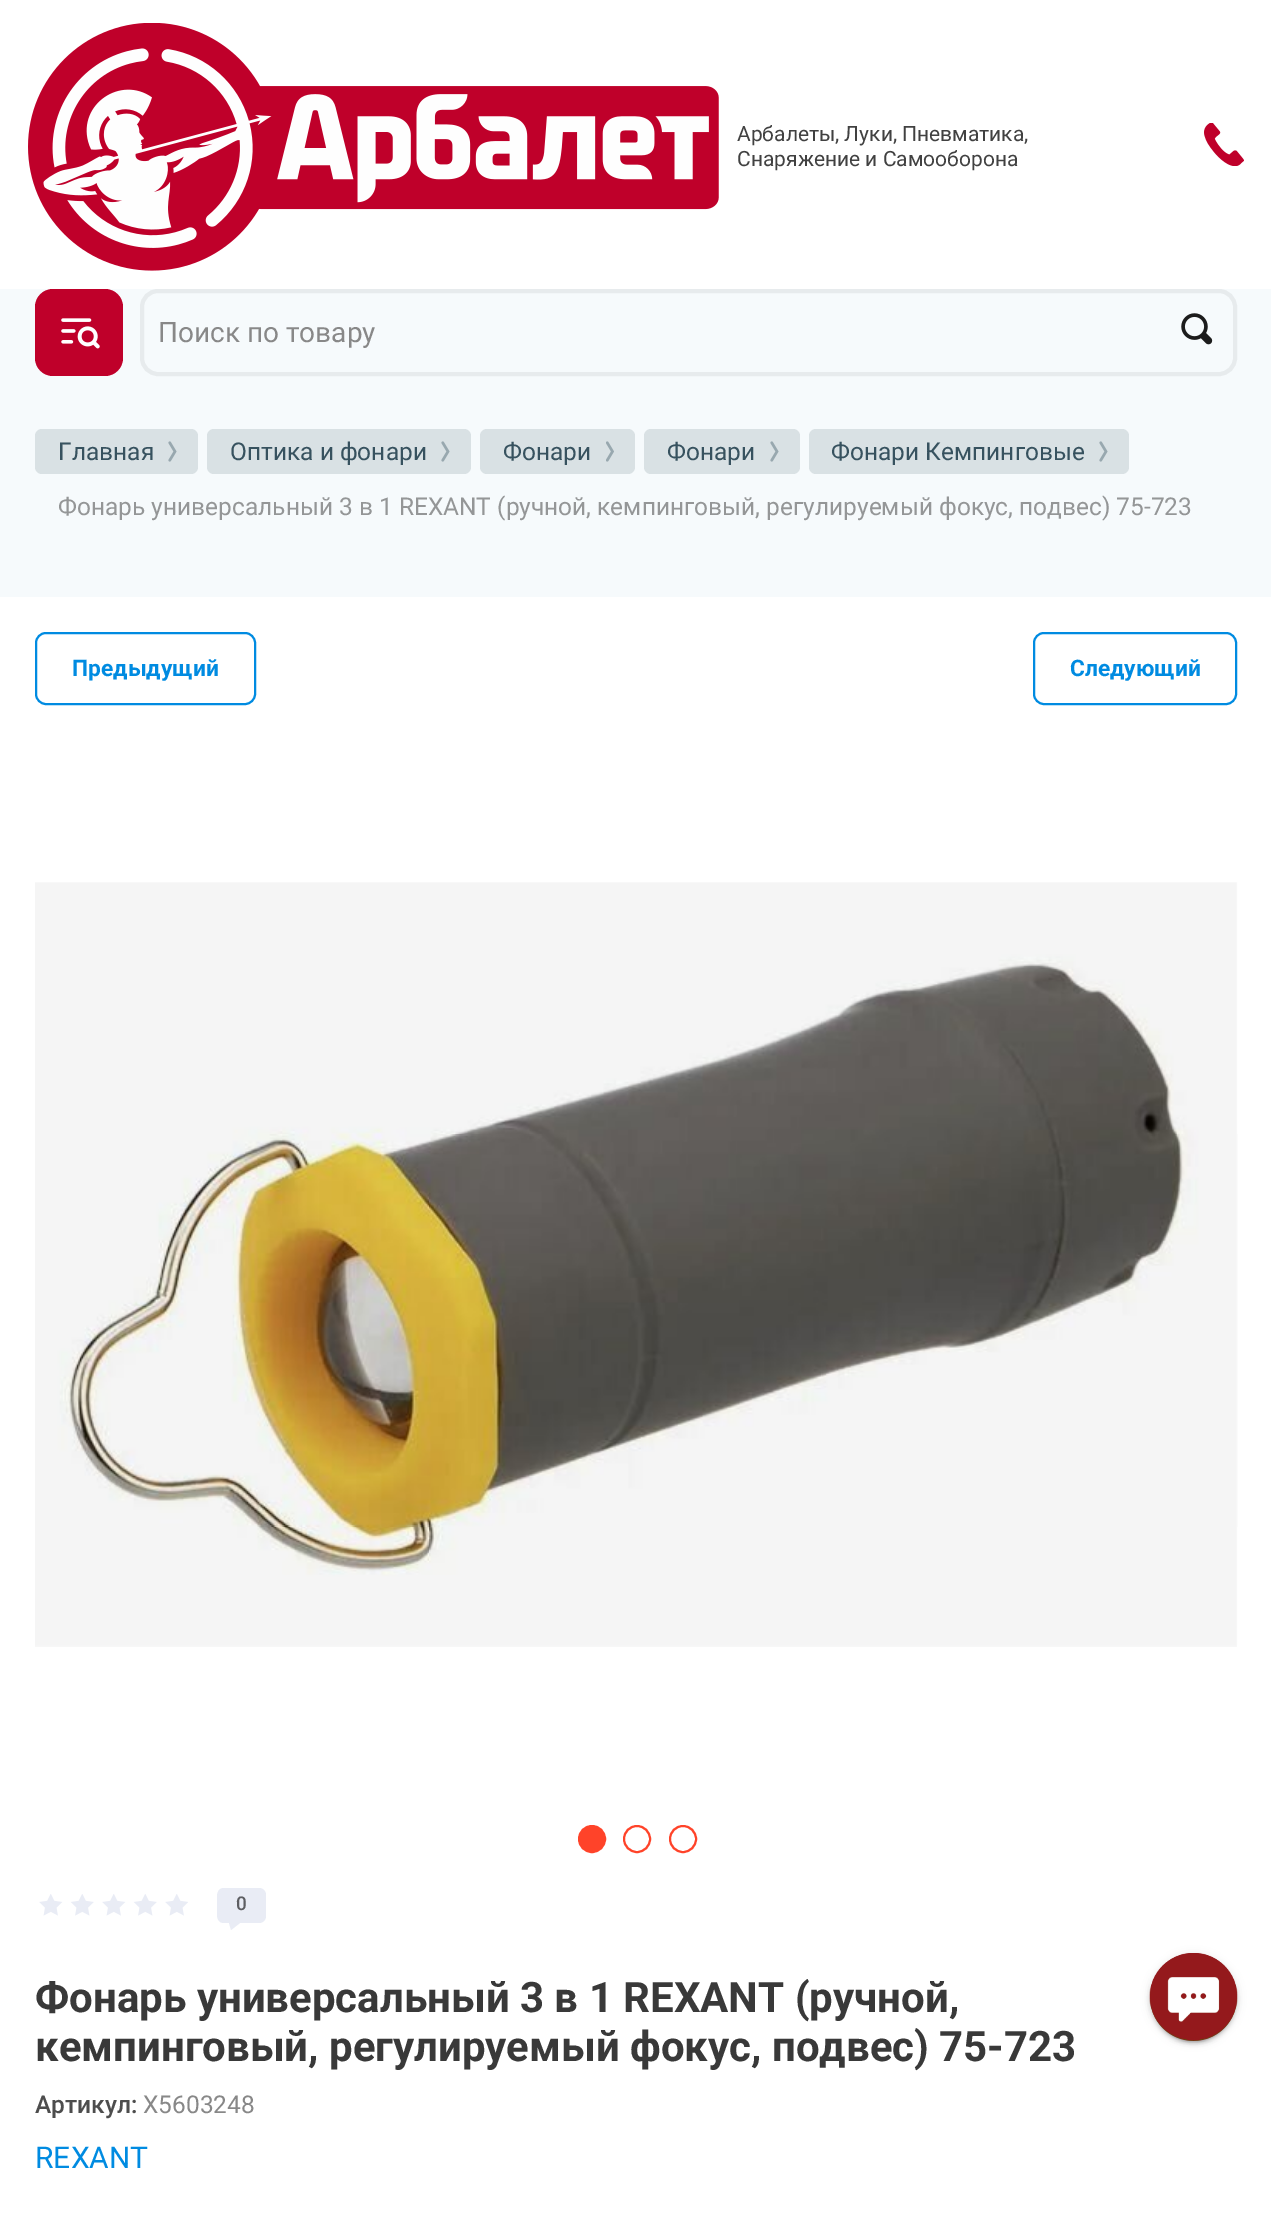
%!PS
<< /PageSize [1271 2215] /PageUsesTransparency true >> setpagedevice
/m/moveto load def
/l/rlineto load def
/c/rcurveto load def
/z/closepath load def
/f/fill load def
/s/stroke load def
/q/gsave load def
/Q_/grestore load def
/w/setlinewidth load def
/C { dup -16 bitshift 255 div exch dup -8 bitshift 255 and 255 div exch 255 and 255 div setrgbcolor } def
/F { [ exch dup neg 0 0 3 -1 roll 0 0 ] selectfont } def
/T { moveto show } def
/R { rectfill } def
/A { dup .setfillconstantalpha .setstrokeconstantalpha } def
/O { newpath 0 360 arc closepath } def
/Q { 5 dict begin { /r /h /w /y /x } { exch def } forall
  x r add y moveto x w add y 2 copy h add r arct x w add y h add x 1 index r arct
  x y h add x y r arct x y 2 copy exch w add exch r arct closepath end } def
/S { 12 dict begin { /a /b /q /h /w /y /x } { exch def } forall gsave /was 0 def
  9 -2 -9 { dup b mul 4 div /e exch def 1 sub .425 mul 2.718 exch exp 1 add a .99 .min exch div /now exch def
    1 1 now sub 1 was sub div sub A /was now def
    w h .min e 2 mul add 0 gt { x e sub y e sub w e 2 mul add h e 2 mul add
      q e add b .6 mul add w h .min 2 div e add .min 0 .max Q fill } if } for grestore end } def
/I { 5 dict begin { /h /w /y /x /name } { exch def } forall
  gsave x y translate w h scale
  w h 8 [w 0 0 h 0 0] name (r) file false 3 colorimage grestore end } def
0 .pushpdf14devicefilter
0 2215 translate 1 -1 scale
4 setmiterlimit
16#F6FAFC C
0 0 1271 2215 R
16#FFFFFF C
0 0 1271 289 R
(1.rgb) 28 23 691 248 I
/Roboto-Regular 21 F
16#414141 C
(Арбалеты, Луки, Пневматика,) 737 141 T
(Снаряжение и Самооборона) 737 166 T
(2.rgb) 1204 123 40 43 I
16#BF002A C
35 289 88 87 18 Q f
(3.rgb) 61 318 39 31 I
16#E7EBED C
4 w
142 291 1093 83 16 Q s
/Roboto-Regular 28 F
16#888888 C
(Поиск по товару) 158 342 T
(4.rgb) 1181 313 32 32 I
16#D9E1E4 C
35 429 163 45 7 Q f
/Roboto-Regular 24.5 F
16#37525F C
(Главная) 58 460 T
(5.rgb) 168 441 9 21 I
16#D9E1E4 C
207 429 264 45 7 Q f
16#37525F C
(Оптика и фонари) 230 460 T
(5.rgb) 441 441 9 21 I
16#D9E1E4 C
480 429 155 45 7 Q f
16#37525F C
(Фонари) 503 460 T
(6.rgb) 606 441 8 21 I
16#D9E1E4 C
644 429 156 45 7 Q f
16#37525F C
(Фонари) 667 460 T
(5.rgb) 770 441 9 21 I
16#D9E1E4 C
809 429 320 45 7 Q f
16#37525F C
(Фонари Кемпинговые) 831 460 T
(5.rgb) 1099 441 9 21 I
16#949697 C
(Фонарь универсальный 3 в 1 REXANT \(ручной, кемпинговый, регулируемый фокус, подвес\) 75-723) 58 515 T
16#FFFFFF C
0 597 1271 1618 R
16#008BE1 C
2 w
36 633 219 71 10 Q s
/Roboto-Bold 22.75 F
(Предыдущий) 72 676 T
1034 633 202 71 10 Q s
(Следующий) 1070 676 T
(7.rgb) 35 882 1203 765 I
16#FF4329 C
592 1839 13 O q f Q_
s
637 1839 13 O s
683 1839 13 O s
(8.rgb) 39 1894 149 22 I
q
217 1888 49 42 rectclip
16#E9ECF5 C
224 1888 m -9 0 -7 12 -7 18 c 0 5 -2 16 6 17 c 6 0 l 2 7 l 9 -7 l 19 0 l 4 0 7 -3 7 -7 c 0 -21 l 0 -4 -3 -7 -7 -7 c z f
Q_
/Roboto-Medium 19 F
16#5D5E62 C
(0) 236 1910 T
/Roboto-Bold 42 F
16#393939 C
(Фонарь универсальный 3 в 1 REXANT \(ручной,) 35 2012 T
(кемпинговый, регулируемый фокус, подвес\) 75-723) 35 2061 T
/Roboto-Medium 24.5 F
16#4D4D4D C
(Артикул:) 35 2113 T
/Roboto-Regular 24.5 F
16#888888 C
(X5603248) 143 2113 T
/Roboto-Regular 30 F
16#008BE1 C
(REXANT) 35 2168 T
16#000000 C
1153 1962 81 80 40 1 .2 S
1150 1955 87 87 43.5 4.5 .12 S
1150 1957 87 87 43.5 2 .14 S
16#94191C C
1150 1953 87 88 43.5 Q f
(9.rgb) 1149 1953 89 88 I
.poppdf14devicefilter showpage
